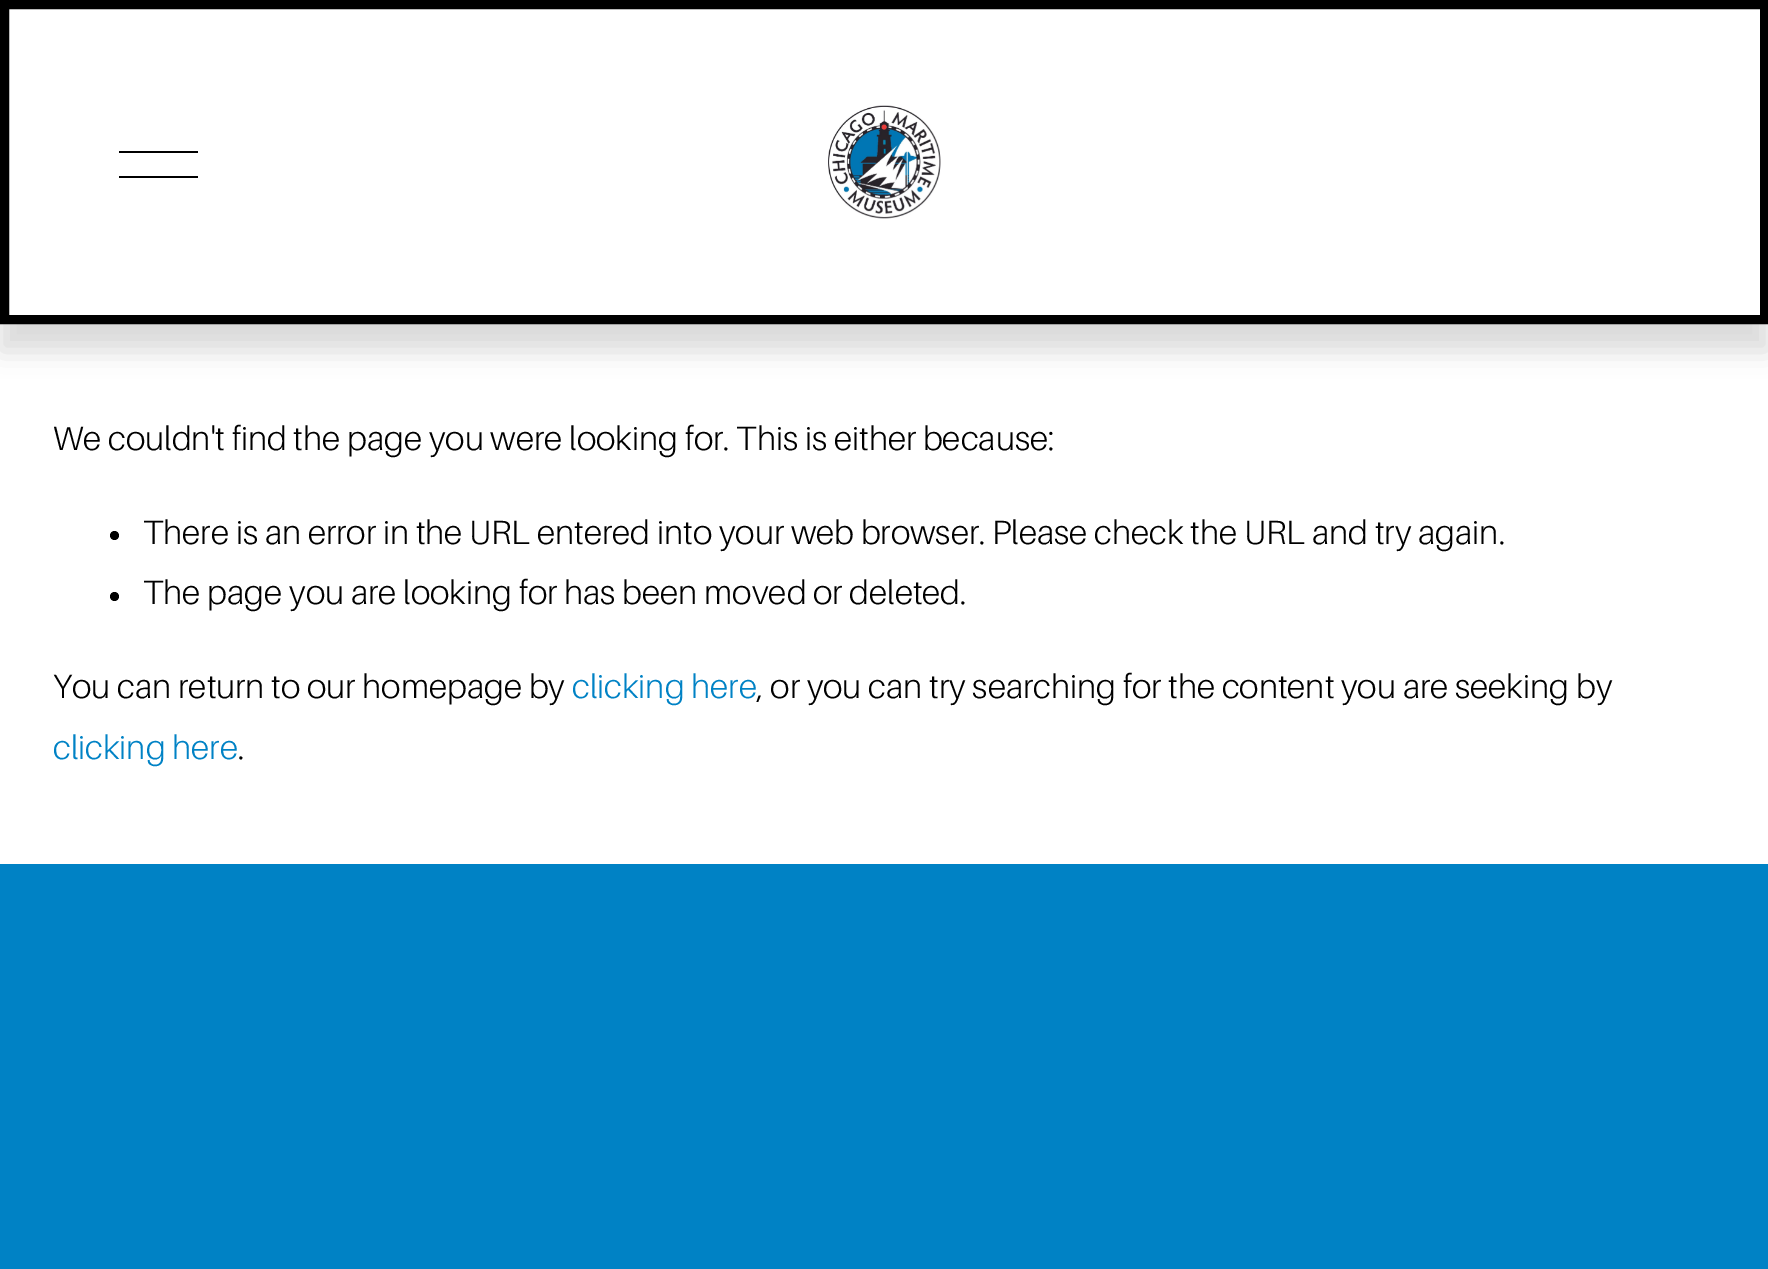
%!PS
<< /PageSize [1768 1269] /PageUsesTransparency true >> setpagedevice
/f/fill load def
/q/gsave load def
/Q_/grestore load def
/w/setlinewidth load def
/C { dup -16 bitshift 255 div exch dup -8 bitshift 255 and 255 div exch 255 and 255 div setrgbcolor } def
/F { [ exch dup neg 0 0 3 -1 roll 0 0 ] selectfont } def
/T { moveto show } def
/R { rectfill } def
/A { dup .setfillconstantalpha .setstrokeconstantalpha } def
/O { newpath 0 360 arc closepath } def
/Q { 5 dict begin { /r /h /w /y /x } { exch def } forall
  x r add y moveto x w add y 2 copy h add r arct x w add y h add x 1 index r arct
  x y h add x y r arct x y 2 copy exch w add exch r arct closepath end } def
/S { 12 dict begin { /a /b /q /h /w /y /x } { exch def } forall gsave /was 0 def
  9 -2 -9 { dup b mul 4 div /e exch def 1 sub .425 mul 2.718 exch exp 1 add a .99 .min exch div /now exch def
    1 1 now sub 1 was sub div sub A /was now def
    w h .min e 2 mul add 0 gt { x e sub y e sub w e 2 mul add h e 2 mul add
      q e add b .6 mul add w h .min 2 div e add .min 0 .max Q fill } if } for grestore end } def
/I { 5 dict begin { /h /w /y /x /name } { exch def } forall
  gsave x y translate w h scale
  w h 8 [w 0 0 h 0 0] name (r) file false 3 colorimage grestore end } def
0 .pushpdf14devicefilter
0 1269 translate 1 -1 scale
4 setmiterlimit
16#FFFFFF C
0 0 1768 1269 R
q
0 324 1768 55 rectclip
16#D9D9D9 C
0 27 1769 324 0 13.5 1 S
Q_
16#000000 C
9 w
4.5 4.5 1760 315 rectstroke
119 151 79 2 R
119 176 79 2 R
(1.rgb) 828 105 113 114 I
/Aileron-Light 33.6 F
(We couldn't find the page you were looking for. This is either because:) 53 450 T
114.5 535.5 4.5 O f
(There is an error in the URL entered into your web browser. Please check the URL and try again.) 143 544 T
114.5 596.5 4.5 O f
(The page you are looking for has been moved or deleted.) 143 604 T
(You can return to our homepage by) 53 698 T
16#0082C5 C
(clicking here) 572 698 T
16#000000 C
(, or you can try searching for the content you are seeking by) 757 698 T
16#0082C5 C
(clicking here) 53 759 T
16#000000 C
(.) 238 759 T
16#0082C5 C
0 864 1768 405 R
.poppdf14devicefilter showpage
